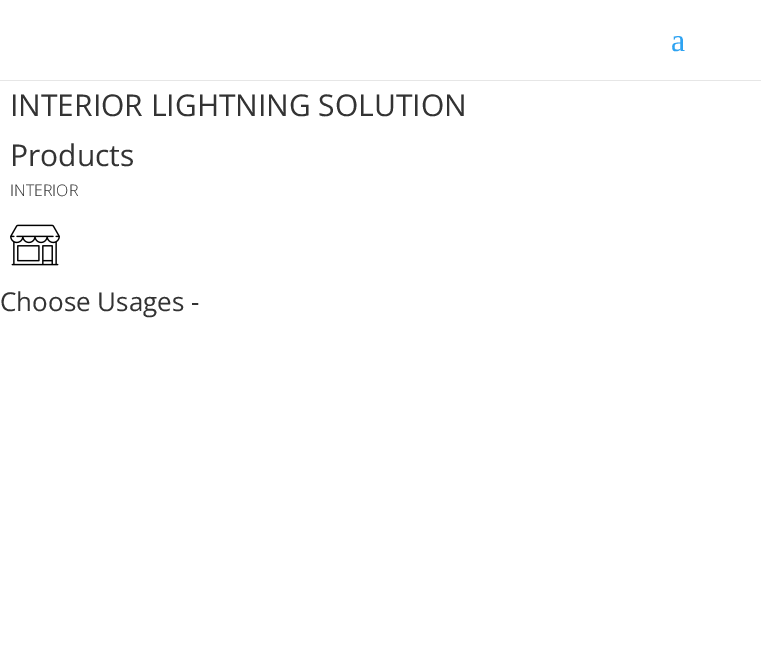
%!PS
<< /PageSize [761 654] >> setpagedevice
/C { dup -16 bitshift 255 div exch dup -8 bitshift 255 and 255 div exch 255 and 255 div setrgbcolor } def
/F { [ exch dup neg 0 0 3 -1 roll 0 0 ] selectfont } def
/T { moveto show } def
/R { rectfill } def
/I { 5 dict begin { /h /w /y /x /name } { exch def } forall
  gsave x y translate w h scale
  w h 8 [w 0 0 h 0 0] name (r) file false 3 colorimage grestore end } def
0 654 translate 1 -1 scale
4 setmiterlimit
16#FFFFFF C
0 0 761 654 R
16#E6E6E6 C
0 80 761 1 R
/LiberationSerif-Regular 32 F
16#2EA3F2 C
(a) 671 51 T
/OpenSans-Regular 30 F
16#333333 C
(INTERIOR LIGHTNING SOLUTION) 10 116 T
(Products) 10 166 T
/OpenSans-Light 16 F
(INTERIOR) 10 196 T
(1.rgb) 10 224 50 42 I
/OpenSans-Regular 26 F
(Choose Usages -) 0 311 T
showpage
